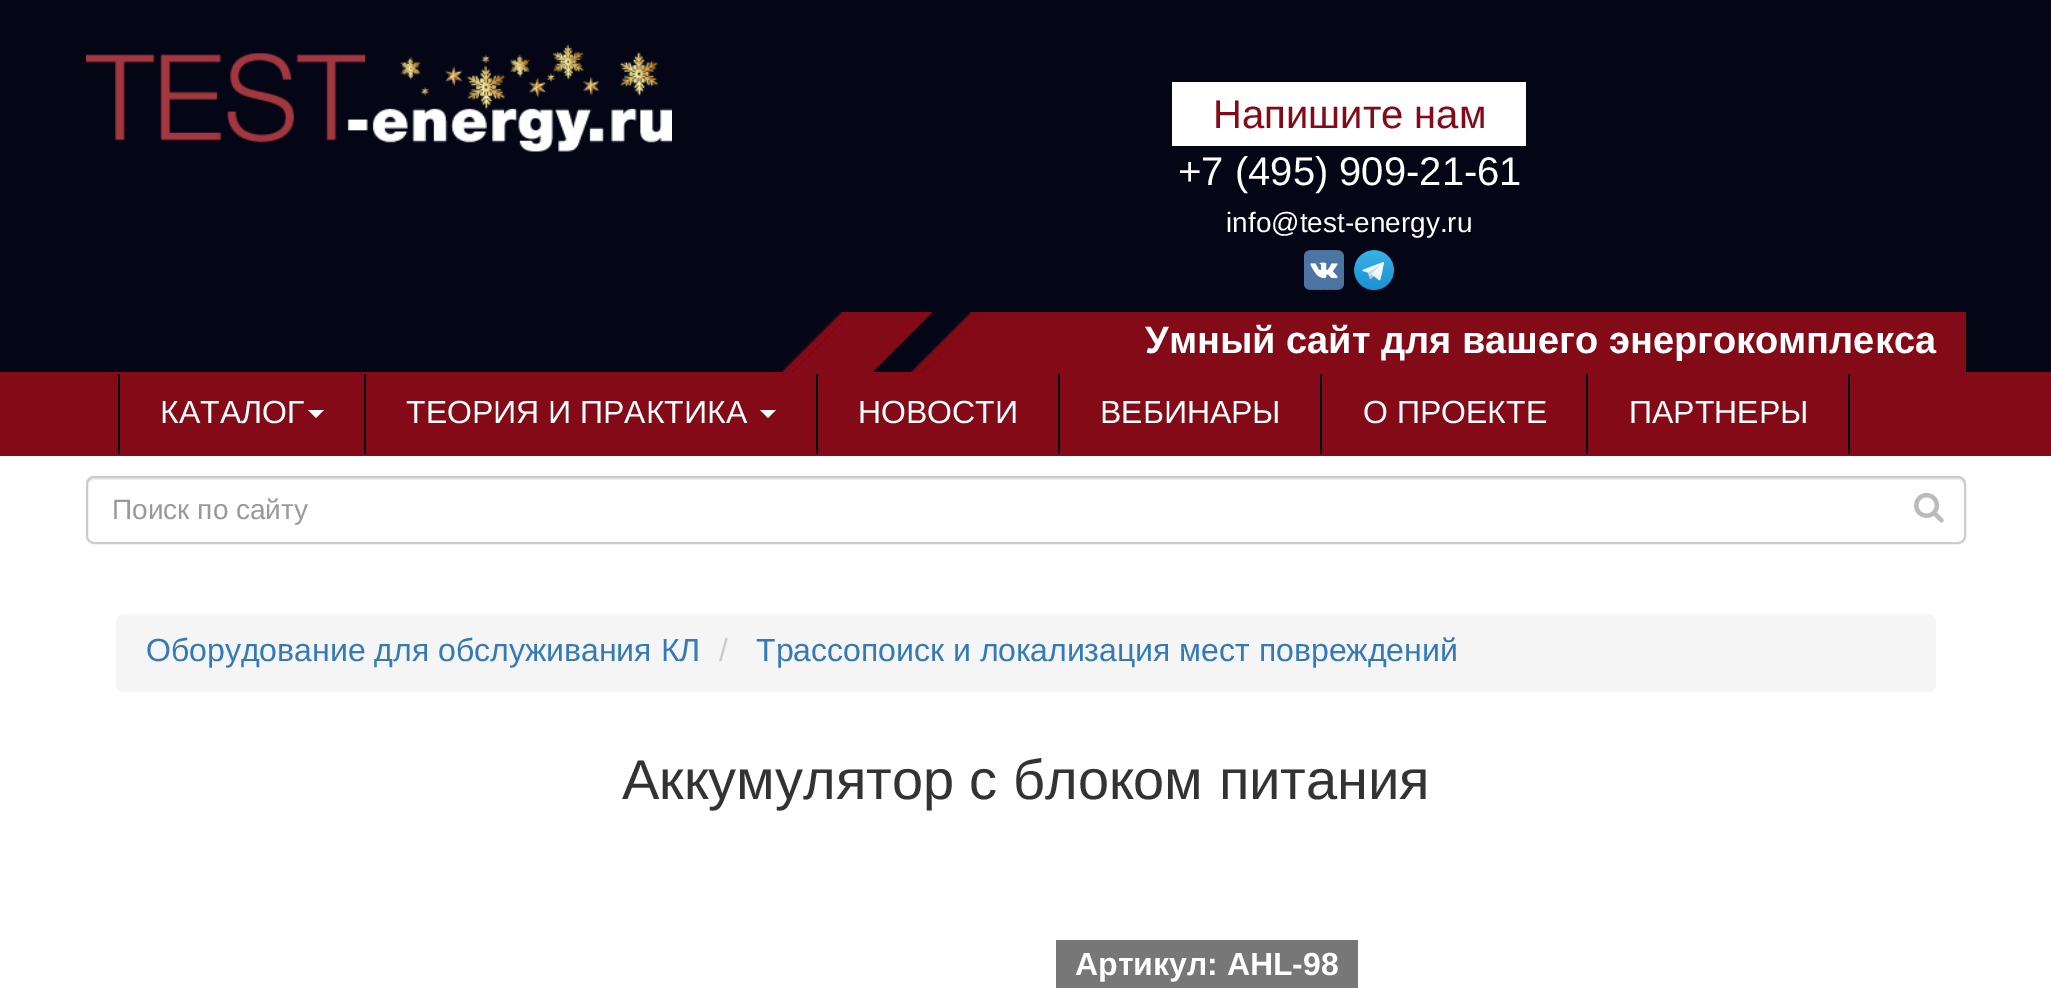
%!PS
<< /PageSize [2051 988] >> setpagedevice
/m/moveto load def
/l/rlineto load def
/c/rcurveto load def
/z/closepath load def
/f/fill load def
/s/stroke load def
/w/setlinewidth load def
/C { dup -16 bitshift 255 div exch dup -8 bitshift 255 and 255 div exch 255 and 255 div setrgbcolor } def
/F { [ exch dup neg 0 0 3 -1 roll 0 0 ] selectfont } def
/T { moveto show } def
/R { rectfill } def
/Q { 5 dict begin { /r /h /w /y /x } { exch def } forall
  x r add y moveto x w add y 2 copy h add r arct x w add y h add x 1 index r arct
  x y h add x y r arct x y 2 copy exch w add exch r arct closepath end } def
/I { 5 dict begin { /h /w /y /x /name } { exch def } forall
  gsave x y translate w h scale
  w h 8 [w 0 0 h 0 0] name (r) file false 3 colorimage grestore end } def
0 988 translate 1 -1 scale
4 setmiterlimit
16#FFFFFF C
0 0 2051 988 R
16#040616 C
0 0 2051 372 R
(1.rgb) 86 44 586 108 I
16#FFFFFF C
1172 82 354 64 R
/LiberationSans-Regular 40 F
16#830A16 C
(Напишите нам) 1213 128 T
16#FFFFFF C
(+7 \(495\) 909-21-61) 1178 185 T
/LiberationSans-Regular 28 F
(info@test-energy.ru) 1226 232 T
(2.rgb) 1304 250 40 40 I
(3.rgb) 1354 250 40 40 I
(4.rgb) 781 312 1185 60 I
/LiberationSans-Bold 38 F
(Умный сайт для вашего энергокомплекса) 1145 353 T
16#830A16 C
0 372 2051 84 R
16#000000 C
364 374 2 80 R
118 374 2 80 R
/LiberationSans-Regular 32 F
16#FFFFFF C
(КАТАЛОГ) 160 423 T
308 410 m 16 0 l -8 8 l z f
16#000000 C
816 374 2 80 R
16#FFFFFF C
(ТЕОРИЯ И ПРАКТИКА) 406 423 T
760 410 m 16 0 l -8 8 l z f
16#000000 C
1058 374 2 80 R
16#FFFFFF C
(НОВОСТИ) 858 423 T
16#000000 C
1320 374 2 80 R
16#FFFFFF C
(ВЕБИНАРЫ) 1100 423 T
16#000000 C
1586 374 2 80 R
16#FFFFFF C
(О ПРОЕКТЕ) 1363 423 T
16#000000 C
1848 374 2 80 R
16#FFFFFF C
(ПАРТНЕРЫ) 1629 423 T
16#ECECEC C
94 480 m 1864 0 l 3 0 6 3 6 6 c 0 -4 -1 -8 -6 -8 c -1864 0 l -5 0 -6 4 -6 8 c 0 -3 3 -6 6 -6 c z f
16#CCCCCC C
2 w
87 477 1878 66 7 Q s
/LiberationSans-Regular 28 F
16#999999 C
(Поиск по сайту) 112 519 T
(5.rgb) 1914 492 30 31 I
16#F5F5F5 C
116 614 1820 78 8 Q f
/LiberationSans-Regular 32 F
16#337AB7 C
(Оборудование для обслуживания КЛ) 146 661 T
16#CCCCCC C
(/) 719 661 T
16#337AB7 C
(Трассопоиск и локализация мест повреждений) 756 661 T
/LiberationSans-Regular 56 F
16#333333 C
(Аккумулятор с блоком питания) 622 799 T
16#777777 C
1056 940 302 48 R
/LiberationSans-Bold 32 F
16#FFFFFF C
(Артикул: AHL-98) 1075 975 T
showpage
